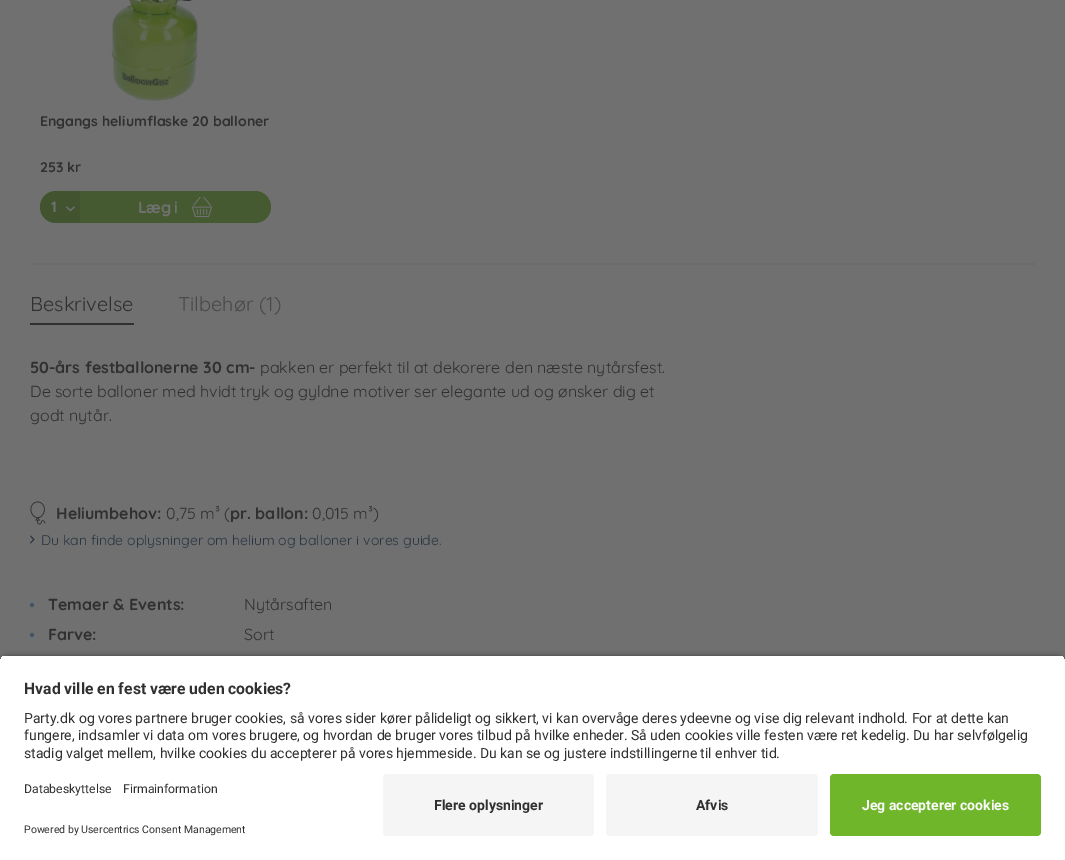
%!PS
<< /PageSize [1065 860] /PageUsesTransparency true >> setpagedevice
/m/moveto load def
/l/rlineto load def
/c/rcurveto load def
/z/closepath load def
/f/fill load def
/q/gsave load def
/Q_/grestore load def
/C { dup -16 bitshift 255 div exch dup -8 bitshift 255 and 255 div exch 255 and 255 div setrgbcolor } def
/F { [ exch dup neg 0 0 3 -1 roll 0 0 ] selectfont } def
/T { moveto show } def
/R { rectfill } def
/A { dup .setfillconstantalpha .setstrokeconstantalpha } def
/O { newpath 0 360 arc closepath } def
/Q { 5 dict begin { /r /h /w /y /x } { exch def } forall
  x r add y moveto x w add y 2 copy h add r arct x w add y h add x 1 index r arct
  x y h add x y r arct x y 2 copy exch w add exch r arct closepath end } def
/S { 12 dict begin { /a /b /q /h /w /y /x } { exch def } forall gsave /was 0 def
  9 -2 -9 { dup b mul 4 div /e exch def 1 sub .425 mul 2.718 exch exp 1 add a .99 .min exch div /now exch def
    1 1 now sub 1 was sub div sub A /was now def
    w h .min e 2 mul add 0 gt { x e sub y e sub w e 2 mul add h e 2 mul add
      q e add b .6 mul add w h .min 2 div e add .min 0 .max Q fill } if } for grestore end } def
/I { 5 dict begin { /h /w /y /x /name } { exch def } forall
  gsave x y translate w h scale
  w h 8 [w 0 0 h 0 0] name (r) file false 3 colorimage grestore end } def
0 .pushpdf14devicefilter
0 860 translate 1 -1 scale
4 setmiterlimit
16#707070 C
0 0 1065 860 R
(1.rgb) 108 0 90 101 I
/Quicksand-Bold 14 F
16#303030 C
(Engangs heliumflaske 20 balloner) 40 126 T
(253 kr) 40 172 T
16#41542F C
56 191 m 24 0 l 0 32 l -24 0 l -9 0 -16 -7 -16 -16 c 0 -9 7 -16 16 -16 c z f
/Quicksand-Bold 15 F
16#707070 C
(1) 51 212 T
(2.rgb) 66 206 9 6 I
16#455A31 C
80 191 m 175 0 l 9 0 16 7 16 16 c 0 9 -7 16 -16 16 c -175 0 l z f
/Quicksand-Bold 16 F
16#707070 C
138 213 m -.5 0 (Læg i) ashow
(3.rgb) 191 196 22 22 I
16#6C6B6B C
30 263 1005 2 R
16#303030 C
30 323 104 2 R
/Quicksand-Regular 20 F
(Beskrivelse) 30 311 T
16#494949 C
(Tilbehør \(1\)) 178 311 T
/Quicksand-Bold 16 F
16#303030 C
(50-års festballonerne 30 cm-) 30 373 T
/Quicksand-Regular 16 F
(pakken er perfekt til at dekorere den næste nytårsfest.) 260 373 T
(De sorte balloner med hvidt tryk og gyldne motiver ser elegante ud og ønsker dig et) 30 397 T
(godt nytår.) 30 421 T
(4.rgb) 30 501 16 24 I
/Quicksand-Bold 16 F
(Heliumbehov:) 56 519 T
/Quicksand-Regular 16 F
(0,75 m³ \() 166 519 T
/Quicksand-Bold 16 F
(pr. ballon:) 230 519 T
/Quicksand-Regular 16 F
(0,015 m³\)) 312 519 T
(5.rgb) 30 535 5 9 I
/Quicksand-Regular 14 F
16#293542 C
(Du kan finde oplysninger om helium og balloner i vores guide.) 41 545 T
16#405367 C
32 605 2 O f
/Quicksand-Bold 16 F
16#303030 C
(Temaer & Events:) 48 610 T
/Quicksand-Regular 16 F
(Nytårsaften) 244 610 T
16#405367 C
32 635 2 O f
/Quicksand-Bold 16 F
16#303030 C
(Farve:) 48 640 T
/Quicksand-Regular 16 F
(Sort) 244 640 T
16#000000 C
0 658 1065 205 8 3.5 .8 S
q
8 655 m 1049 0 l 4.5 0 8 3.5 8 8 c 0 103 l -1065 0 l 0 -103 l 0 -4.5 3.5 -8 8 -8 c z clip newpath
16#FFFFFF C
0 656 1065 110 R
Q_
/Roboto-Bold 15.75 F
16#303030 C
(Hvad ville en fest være uden cookies?) 24 694 T
/Roboto-Regular 14 F
(Party.dk og vores partnere bruger cookies, så vores sider kører pålideligt og sikkert, vi kan overvåge deres ydeevne og vise dig relevant indhold. For at dette kan) 24 723 T
(fungere, indsamler vi data om vores brugere, og hvordan de bruger vores tilbud på hvilke enheder. Så uden cookies ville festen være ret kedelig. Du har selvfølgelig) 24 740 T
(stadig valget mellem, hvilke cookies du accepterer på vores hjemmeside. Du kan se og justere indstillingerne til enhver tid.) 24 758 T
16#FFFFFF C
0 766 1065 94 R
/Roboto-Regular 12.25 F
16#303030 C
(Databeskyttelse) 24 793 T
(Firmainformation) 123 793 T
/Roboto-Regular 10.5 F
(Powered by Usercentrics Consent Management) 24 833 T
16#F5F5F5 C
383 774 211 62 4 Q f
/Roboto-Bold 14 F
16#303030 C
(Flere oplysninger) 434 810 T
16#F5F5F5 C
606 774 212 62 4 Q f
16#303030 C
(Afvis) 696 810 T
16#6FB62B C
830 774 211 62 4 Q f
16#FAFAFA C
(Jeg accepterer cookies) 862 810 T
.poppdf14devicefilter showpage
